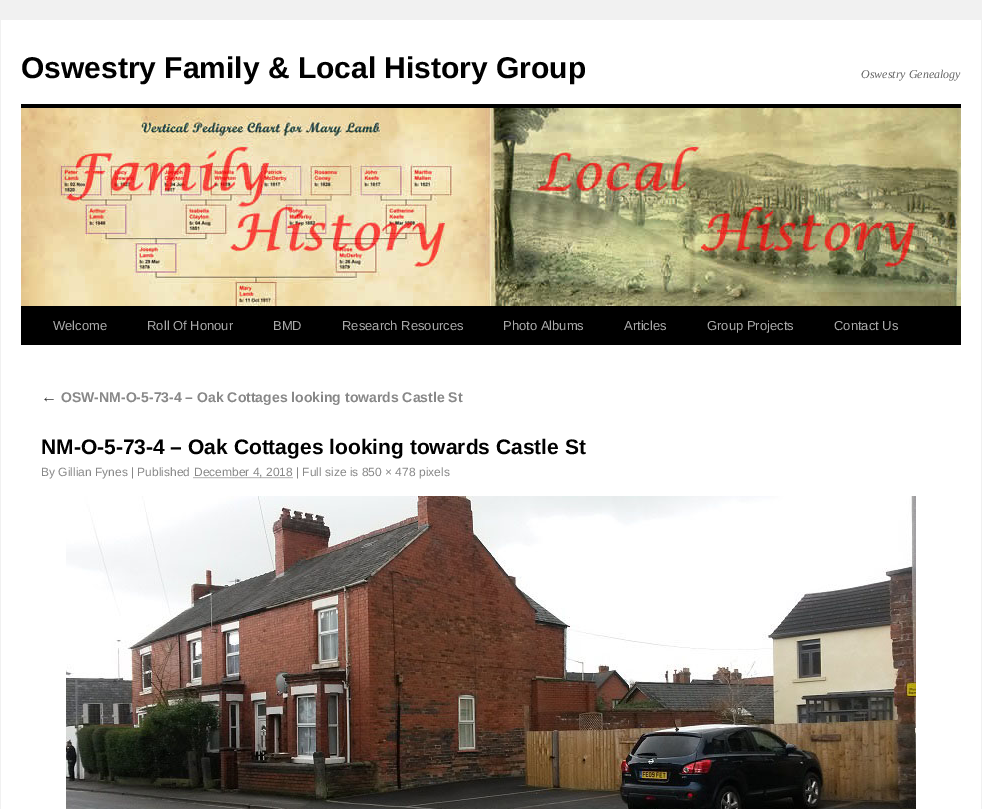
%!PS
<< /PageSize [982 809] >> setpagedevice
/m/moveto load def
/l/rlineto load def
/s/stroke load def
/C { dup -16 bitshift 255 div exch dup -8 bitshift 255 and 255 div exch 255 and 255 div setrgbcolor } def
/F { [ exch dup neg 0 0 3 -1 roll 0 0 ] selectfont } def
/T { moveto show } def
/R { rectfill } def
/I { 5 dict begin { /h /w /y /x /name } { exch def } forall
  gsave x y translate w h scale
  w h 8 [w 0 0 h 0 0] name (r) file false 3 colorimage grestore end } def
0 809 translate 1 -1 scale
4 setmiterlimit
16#F1F1F1 C
0 0 982 809 R
16#FFFFFF C
1 20 980 789 R
/LiberationSans-Bold 30 F
16#000000 C
(Oswestry Family & Local History Group) 21 78 T
/LiberationSerif-Italic 12 F
16#666666 C
(Oswestry Genealogy) 861 78 T
16#000000 C
21 104 940 4 R
21 306 940 39 R
(1.rgb) 21 108 940 198 I
/LiberationSans-Regular 13 F
16#AAAAAA C
(Welcome) 53 330 T
(Roll Of Honour) 147 330 T
(BMD) 273 330 T
(Research Resources) 342 330 T
(Photo Albums) 503 330 T
(Articles) 624 330 T
(Group Projects) 707 330 T
(Contact Us) 834 330 T
/LiberationSerif-Italic 16 F
16#333333 C
(←) 41 402 T
/LiberationSans-Bold 14 F
16#888888 C
(OSW-NM-O-5-73-4 – Oak Cottages looking towards Castle St) 61 402 T
/LiberationSans-Bold 21 F
16#000000 C
(NM-O-5-73-4 – Oak Cottages looking towards Castle St) 41 454 T
/LiberationSans-Regular 12 F
16#888888 C
(By Gillian Fynes | Published) 41 476 T
[1 1] 0 setdash
193.5 477.5 m 99 0 l s
(December 4, 2018 | Full size is 850 × 478 pixels) 194 476 T
(2.rgb) 66 496 850 313 I
showpage
